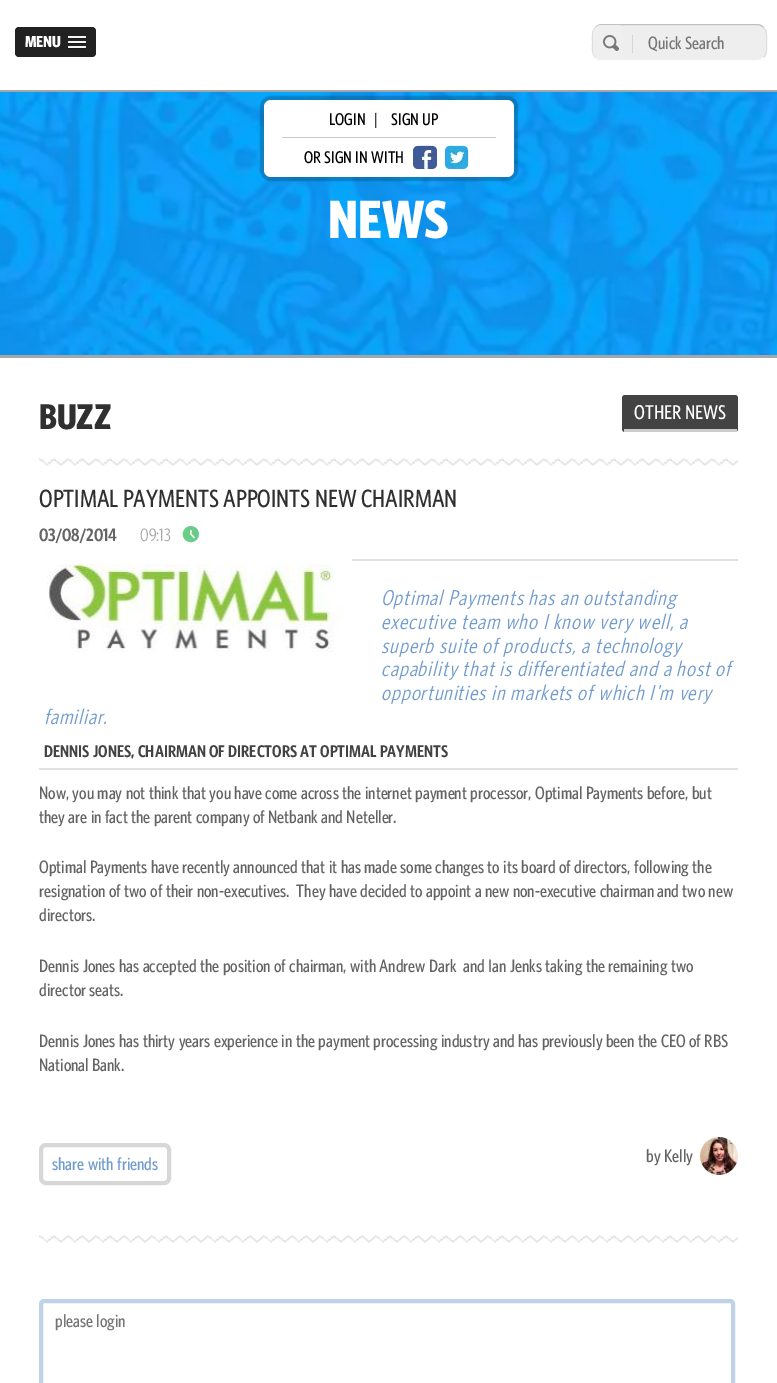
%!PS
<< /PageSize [777 1383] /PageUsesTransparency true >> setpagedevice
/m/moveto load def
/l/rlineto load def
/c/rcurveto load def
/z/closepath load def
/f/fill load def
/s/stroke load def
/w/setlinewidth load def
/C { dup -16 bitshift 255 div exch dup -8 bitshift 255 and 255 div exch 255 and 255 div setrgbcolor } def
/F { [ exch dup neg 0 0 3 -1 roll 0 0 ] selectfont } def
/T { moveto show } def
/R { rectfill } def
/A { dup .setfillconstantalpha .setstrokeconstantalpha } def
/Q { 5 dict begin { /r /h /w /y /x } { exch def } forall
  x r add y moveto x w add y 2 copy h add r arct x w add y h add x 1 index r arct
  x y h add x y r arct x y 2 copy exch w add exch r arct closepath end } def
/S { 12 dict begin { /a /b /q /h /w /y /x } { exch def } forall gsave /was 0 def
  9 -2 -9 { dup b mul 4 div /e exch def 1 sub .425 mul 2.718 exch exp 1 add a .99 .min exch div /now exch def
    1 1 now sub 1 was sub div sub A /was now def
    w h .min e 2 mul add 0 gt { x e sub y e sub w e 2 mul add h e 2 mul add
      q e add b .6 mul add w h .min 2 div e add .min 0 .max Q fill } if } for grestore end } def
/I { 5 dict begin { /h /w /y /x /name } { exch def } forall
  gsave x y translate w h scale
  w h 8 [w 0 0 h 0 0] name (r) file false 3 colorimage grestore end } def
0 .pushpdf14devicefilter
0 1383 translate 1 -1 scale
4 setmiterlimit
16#FFFFFF C
0 0 777 1383 R
16#A6A6A6 C
0 90 777 2 R
16#222222 C
15 27 81 30 4 Q f
/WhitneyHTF-Bold 16 F
16#FFFFFF C
(MENU) 25 47 T
16#1A1A1A C
68 37.5 m -1 2 3.5 1.5 3.5 1.5 c 11 0 l 0 0 4.5 .5 3.5 -1.5 c -1 1 -7.5 .5 -9 .5 c -1.5 0 -8 .5 -9 -.5 c z f
16#F5F5F5 C
68 36 18 2 1 Q f
16#1A1A1A C
68 42.5 m -1 2 3.5 1.5 3.5 1.5 c 11 0 l 0 0 4.5 .5 3.5 -1.5 c -1 1 -7.5 .5 -9 .5 c -1.5 0 -8 .5 -9 -.5 c z f
16#F5F5F5 C
68 41 18 2 1 Q f
16#1A1A1A C
68 47.5 m -1 2 3.5 1.5 3.5 1.5 c 11 0 l 0 0 4.5 .5 3.5 -1.5 c -1 1 -7.5 .5 -9 .5 c -1.5 0 -8 .5 -9 -.5 c z f
16#F5F5F5 C
68 46 18 2 1 Q f
16#EEEEEE C
592 24 175 37 10 Q f
16#C1C1C1 C
595.5 27.5 m 1.5 -2 4 -3 6.5 -3 c 155 0 l 2.5 0 5 1 6.5 3 c s
16#DFDFDF C
763.5 27.5 m 4 4 3 10 3 15 c 0 5 1 11 -3 15 c s
16#FFFFFF C
763.5 57.5 m -1.5 2 -4 3 -6.5 3 c -155 0 l -2.5 0 -5 -1 -6.5 -3 c s
16#DFDFDF C
595.5 57.5 m -4 -4 -3 -10 -3 -15 c 0 -5 -1 -11 3 -15 c s
16#EFEFEF C
602 25 m 16 0 l 3 0 5 2 5 5 c 0 25 l 0 3 -2 5 -5 5 c -16 0 l -5 0 -9 -4 -9 -9 c 0 -17 l 0 -5 4 -9 9 -9 c z f
(1.rgb) 603 35 16 16 I
16#D6D6D6 C
632 35 1 18 R
/WhitneyHTF-Medium 18 F
16#757575 C
(Quick Search) 648 49 T
16#A6A6A6 C
0 355 777 3 R
(2.rgb) 0 92 777 263 I
16#000000 C
260 96 258 85 11 .5 .2 S
16#FFFFFF C
264 100 250 77 7 Q f
16#CCCCCC C
282 137 214 1 R
/WhitneyHTF-Medium 17 F
16#000000 C
(LOGIN) 329 125 T
(|) 374 125 T
(SIGN UP) 391 125 T
(OR SIGN IN WITH) 304 163 T
(3.rgb) 413 145 24 24 I
(4.rgb) 445 145 24 24 I
/WhitneyHTF-Bold 54 F
16#FFFFFF C
(NEWS) 328 238 T
/WhitneyHTF-Bold 36 F
16#303030 C
(BUZZ) 39 429 T
16#434343 C
622 395 116 37 3 Q f
16#CCCCCC C
624 429 113 3 R
/WhitneyHTF-Medium 20 F
16#FFFFFF C
(OTHER NEWS) 634 419 T
(5.rgb) 39 458 699 8 I
/WhitneyHTF-Medium 25 F
16#303030 C
(OPTIMAL PAYMENTS APPOINTS NEW CHAIRMAN) 39 507 T
/WhitneyHTF-SemiBold 18 F
16#646464 C
(03/08/2014) 39 541 T
/WhitneyHTF-Regular 18 F
16#A6A6A6 C
(09:13) 140 541 T
(6.rgb) 182 526 17 17 I
(7.rgb) 39 559 313 93 I
16#E1E1E1 C
352 559 386 2 R
39 768 699 2 R
/WhitneyHTF-Italic 21.6 F
16#719CCD C
381 605 m 1 0 (Optimal Payments has an outstanding) ashow
381 629 m 1 0 (executive team who I know very well, a) ashow
381 653 m 1 0 (superb suite of products, a technology) ashow
381 676 m 1 0 (capability that is differentiated and a host of) ashow
381 700 m 1 0 (opportunities in markets of which I'm very) ashow
44 724 m 1 0 (familiar.) ashow
/WhitneyHTF-SemiBold 17 F
16#434343 C
(DENNIS JONES, CHAIRMAN OF DIRECTORS AT OPTIMAL PAYMENTS) 44 757 T
/WhitneyHTF-Medium 18 F
16#646464 C
(Now, you may not think that you have come across the internet payment processor, Optimal Payments before, but) 39 799 T
(they are in fact the parent company of Netbank and Neteller.) 39 823 T
(Optimal Payments have recently announced that it has made some changes to its board of directors, following the) 39 873 T
(resignation of two of their non-executives.  They have decided to appoint a new non-executive chairman and two new) 39 897 T
(directors.) 39 921 T
(Dennis Jones has accepted the position of chairman, with Andrew Dark  and Ian Jenks taking the remaining two) 39 972 T
(director seats.) 39 996 T
(Dennis Jones has thirty years experience in the payment processing industry and has previously been the CEO of RBS) 39 1047 T
(National Bank.) 39 1071 T
16#D7D7D7 C
4 w
41 1145 128 38 5 Q s
16#719CCD C
(share with friends) 52 1170 T
16#646464 C
(by Kelly) 646 1162 T
(8.rgb) 700 1137 38 38 I
(5.rgb) 39 1235 699 8 I
16#BFD2E8 C
41 1301 692 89 3 Q s
16#757575 C
(please login) 55 1327 T
.poppdf14devicefilter showpage
